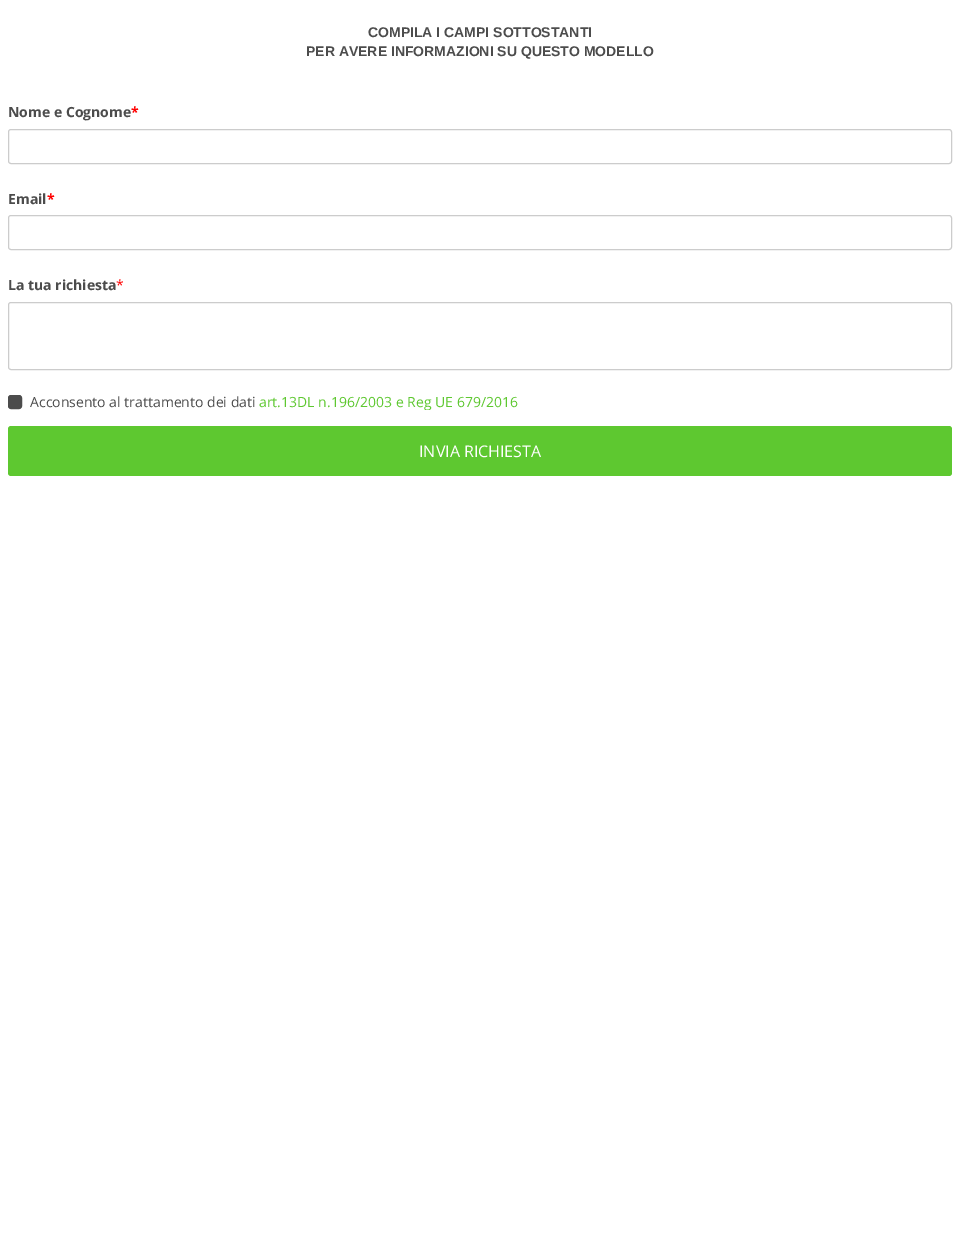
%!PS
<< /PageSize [960 1238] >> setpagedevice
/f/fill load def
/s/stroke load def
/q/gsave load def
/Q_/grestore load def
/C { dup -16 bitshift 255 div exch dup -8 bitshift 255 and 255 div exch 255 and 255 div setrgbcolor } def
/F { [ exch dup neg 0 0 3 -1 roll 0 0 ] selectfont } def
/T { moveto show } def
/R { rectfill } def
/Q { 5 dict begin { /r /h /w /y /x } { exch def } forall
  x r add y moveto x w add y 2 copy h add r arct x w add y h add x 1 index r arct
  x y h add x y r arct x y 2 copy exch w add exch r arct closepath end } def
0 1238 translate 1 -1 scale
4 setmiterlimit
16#FFFFFF C
0 0 960 1238 R
/LiberationSans-Bold 14 F
16#4C4C4C C
(COMPILA I CAMPI SOTTOSTANTI) 368 37 T
(PER AVERE INFORMAZIONI SU QUESTO MODELLO) 306 56 T
/OpenSans-Bold 14 F
(Nome e Cognome) 8 117 T
16#FF0000 C
(*) 131 117 T
16#CCCCCC C
8.5 129.5 943 34 2.5 Q s
16#4C4C4C C
(Email) 8 204 T
16#FF0000 C
(*) 47 204 T
16#CCCCCC C
8.5 215.5 943 34 2.5 Q s
16#4C4C4C C
(La tua richiesta) 8 290 T
/OpenSans-Regular 14 F
16#FF0000 C
(*) 116 290 T
16#CCCCCC C
8.5 302.5 943 67 2.5 Q s
16#4C4C4C C
8.5 395.5 13 13 2.5 Q q f Q_
s
(Acconsento al trattamento dei dati) 30 407 T
16#5EC830 C
(art.13DL n.196/2003) 259 407 T
q
8 387 944 23 rectclip
(e Reg UE 679/2016) 396 407 T
Q_
8 426 944 50 3 Q f
/OpenSans-Regular 16 F
16#FFFFFF C
(INVIA RICHIESTA) 419 457 T
showpage
